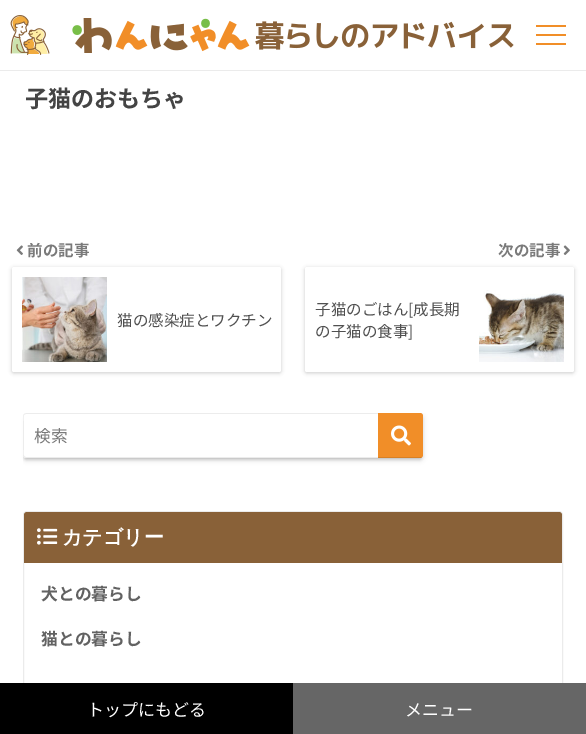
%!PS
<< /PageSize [586 734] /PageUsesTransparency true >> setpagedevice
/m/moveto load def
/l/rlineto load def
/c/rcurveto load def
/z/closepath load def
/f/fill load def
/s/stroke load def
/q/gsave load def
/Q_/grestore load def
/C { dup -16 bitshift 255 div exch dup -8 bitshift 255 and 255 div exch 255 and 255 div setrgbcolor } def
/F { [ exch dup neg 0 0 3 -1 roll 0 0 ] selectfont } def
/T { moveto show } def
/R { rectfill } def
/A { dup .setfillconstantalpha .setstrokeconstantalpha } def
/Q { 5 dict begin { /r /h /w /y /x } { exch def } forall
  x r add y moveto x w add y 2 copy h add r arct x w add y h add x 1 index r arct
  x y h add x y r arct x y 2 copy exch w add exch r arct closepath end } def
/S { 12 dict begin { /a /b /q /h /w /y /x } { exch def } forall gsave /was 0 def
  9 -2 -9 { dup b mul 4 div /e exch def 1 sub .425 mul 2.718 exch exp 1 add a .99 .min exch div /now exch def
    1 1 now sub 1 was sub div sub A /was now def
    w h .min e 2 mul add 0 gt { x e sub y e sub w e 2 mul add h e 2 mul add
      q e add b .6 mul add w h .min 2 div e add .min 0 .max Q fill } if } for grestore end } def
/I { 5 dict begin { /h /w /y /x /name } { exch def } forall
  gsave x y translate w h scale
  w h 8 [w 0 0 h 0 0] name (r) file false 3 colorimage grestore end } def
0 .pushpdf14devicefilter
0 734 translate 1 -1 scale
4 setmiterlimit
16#FFFFFF C
0 0 586 734 R
16#EBEBEB C
0 70 586 1 R
(1.rgb) 10 15 40 40 I
(2.rgb) 72 18 442 35 I
16#F18E28 C
536 25 30 2 R
536 34 30 2 R
536 43 30 2 R
/NotoSansJP-Bold 23 F
16#444444 C
(子猫のおもちゃ) 25 107 T
(3.rgb) 16 245 7 10 I
/NotoSansJP-Bold 15.5 F
16#7A7A7A C
(前の記事) 27 256 T
16#000000 C
12 268 269 105 2 2 .2 S
16#FFFFFF C
12 267 269 105 2 Q f
(4.rgb) 22 277 85 85 I
/NotoSansJP-Regular 15.5 F
16#505050 C
(猫の感染症とワクチン) 117 326 T
/NotoSansJP-Bold 15.5 F
16#7A7A7A C
(次の記事) 498 256 T
(5.rgb) 563 245 7 10 I
16#000000 C
305 268 269 105 2 2 .2 S
16#FFFFFF C
305 267 269 105 2 Q f
/NotoSansJP-Regular 15.5 F
16#505050 C
(子猫のごはん[成長期) 315 315 T
(の子猫の食事]) 315 337 T
(6.rgb) 479 290 85 72 I
16#000000 C
25 418 396 41 1 1.5 .15 S
q
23 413 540 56 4 Q clip newpath
23 415 400 45 3 2.5 .15 S
Q_
16#FFFFFF C
27 413 m 393 0 l 1.5 0 3 1.5 3 3 c 0 39 l 0 1.5 -1.5 3 -3 3 c -394 0 l -1.5 0 -3 -1.5 -3 -3 c 0 -38 l 0 -2 2 -4 4 -4 c z f
16#ECECEC C
27 413 m -2 0 -4 2 -4 4 c 0 38 l 0 2 1 3 3 3 c 394 0 l 2 0 3 -1 3 -3 c 0 -39 l 0 -2 -1 -3 -3 -3 c z 26 414 m -4 0 -2 8 -2 8 c 0 26 l 0 1 -2 9 2 9 c 395 0 l 2 -2 1 -6 1 -9 c 0 -33 l -2 -1 l z eofill
/NotoSansJP-Regular 16.75 F
16#7A7A7A C
(検索) 34 442 T
16#F18E28 C
378 413 m 42 0 l 1.5 0 3 1.5 3 3 c 0 39 l 0 1.5 -1.5 3 -3 3 c -42 0 l z f
0.1 A
16#000000 C
378 457 44 1 R
1 A
(7.rgb) 391 425 20 21 I
16#EBEBEB C
23.5 511.5 539 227 3.5 Q s
16#896138 C
27 512 m 532 0 l 1.5 0 3 1.5 3 3 c 0 48 l -538 0 l 0 -48 l 0 -1.5 1.5 -3 3 -3 c z f
(8.rgb) 37 528 21 17 I
/WenQuanYiZenHei-Bold 20 F
16#FFFFFF C
(カテゴリー) 62 544 T
/NotoSansJP-Bold 16.75 F
16#626262 C
(犬との暮らし) 41 600 T
(猫との暮らし) 41 645 T
16#000000 C
0 683 293 51 R
/NotoSansJP-Regular 17 F
16#FFFFFF C
(トップにもどる) 87 716 T
16#666666 C
293 683 293 51 R
16#FFFFFF C
(メニュー) 405 716 T
.poppdf14devicefilter showpage
